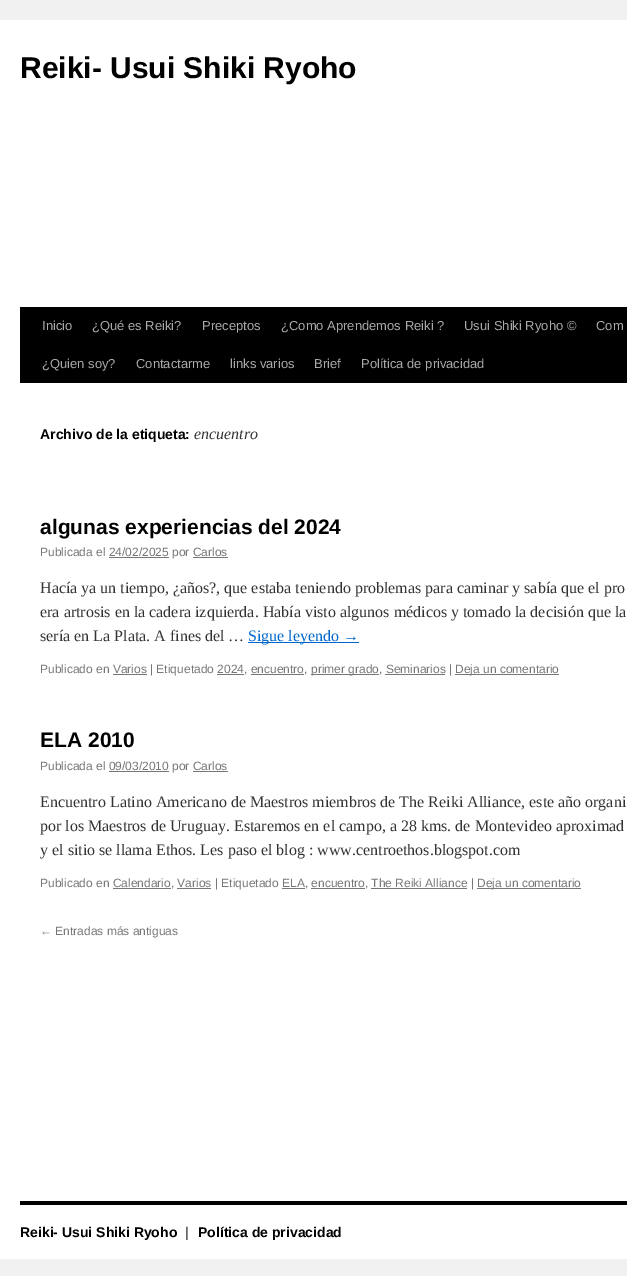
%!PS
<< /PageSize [627 1276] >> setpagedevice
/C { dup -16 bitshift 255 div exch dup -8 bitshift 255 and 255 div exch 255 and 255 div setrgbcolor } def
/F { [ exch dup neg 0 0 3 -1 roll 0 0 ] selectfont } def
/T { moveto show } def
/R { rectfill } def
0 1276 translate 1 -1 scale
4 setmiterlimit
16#F1F1F1 C
0 0 627 1276 R
16#FFFFFF C
0 20 627 1239 R
/LiberationSans-Bold 30 F
16#000000 C
(Reiki- Usui Shiki Ryoho) 20 78 T
20 307 607 76 R
/LiberationSans-Regular 13 F
16#AAAAAA C
(Inicio) 42 330 T
(¿Qué es Reiki?) 92 330 T
(Preceptos) 202 330 T
(¿Como Aprendemos Reiki ?) 281 330 T
(Usui Shiki Ryoho ©) 464 330 T
(Com) 596 330 T
(¿Quien soy?) 42 368 T
(Contactarme) 136 368 T
(links varios) 230 368 T
(Brief) 314 368 T
(Política de privacidad) 361 368 T
/LiberationSans-Bold 14 F
16#000000 C
(Archivo de la etiqueta:) 40 439 T
/LiberationSerif-Italic 16 F
16#333333 C
(encuentro) 194 439 T
/LiberationSans-Bold 21 F
16#000000 C
(algunas experiencias del 2024) 40 534 T
/LiberationSans-Regular 12 F
16#777777 C
(Publicada el 24/02/2025 por Carlos) 40 556 T
109 557 60 1 R
193 557 35 1 R
/LiberationSerif-Regular 16 F
16#333333 C
(Hacía ya un tiempo, ¿años?, que estaba teniendo problemas para caminar y sabía que el pro) 40 593 T
(era artrosis en la cadera izquierda. Había visto algunos médicos y tomado la decisión que la) 40 617 T
(sería en La Plata. A fines del …) 40 641 T
16#0066CC C
248 642 111 1 R
(Sigue leyendo →) 248 641 T
/LiberationSans-Regular 12 F
16#777777 C
(Publicado en Varios | Etiquetado 2024, encuentro,) 40 673 T
113 674 34 1 R
311 674 68 1 R
(primer grado, Seminarios |) 311 673 T
217 674 27 1 R
251 674 53 1 R
385 674 60 1 R
455 674 104 1 R
(Deja un comentario) 455 673 T
/LiberationSans-Bold 21 F
16#000000 C
(ELA 2010) 40 747 T
/LiberationSans-Regular 12 F
16#777777 C
(Publicada el 09/03/2010 por Carlos) 40 770 T
109 771 60 1 R
193 771 35 1 R
/LiberationSerif-Regular 16 F
16#333333 C
(Encuentro Latino Americano de Maestros miembros de The Reiki Alliance, este año organi) 40 807 T
(por los Maestros de Uruguay. Estaremos en el campo, a 28 kms. de Montevideo aproximad) 40 831 T
(y el sitio se llama Ethos. Les paso el blog : www.centroethos.blogspot.com) 40 855 T
/LiberationSans-Regular 12 F
16#777777 C
(Publicado en Calendario, Varios | Etiquetado ELA, encuentro, The Reiki Alliance |) 40 887 T
113 888 58 1 R
177 888 34 1 R
477 888 104 1 R
(Deja un comentario) 477 887 T
282 888 23 1 R
311 888 54 1 R
371 888 96 1 R
(← Entradas más antiguas) 40 935 T
16#000000 C
20 1201 607 4 R
/LiberationSans-Bold 14 F
(Reiki- Usui Shiki Ryoho) 20 1237 T
16#666666 C
(|) 185 1237 T
16#000000 C
(Política de privacidad) 198 1237 T
showpage
